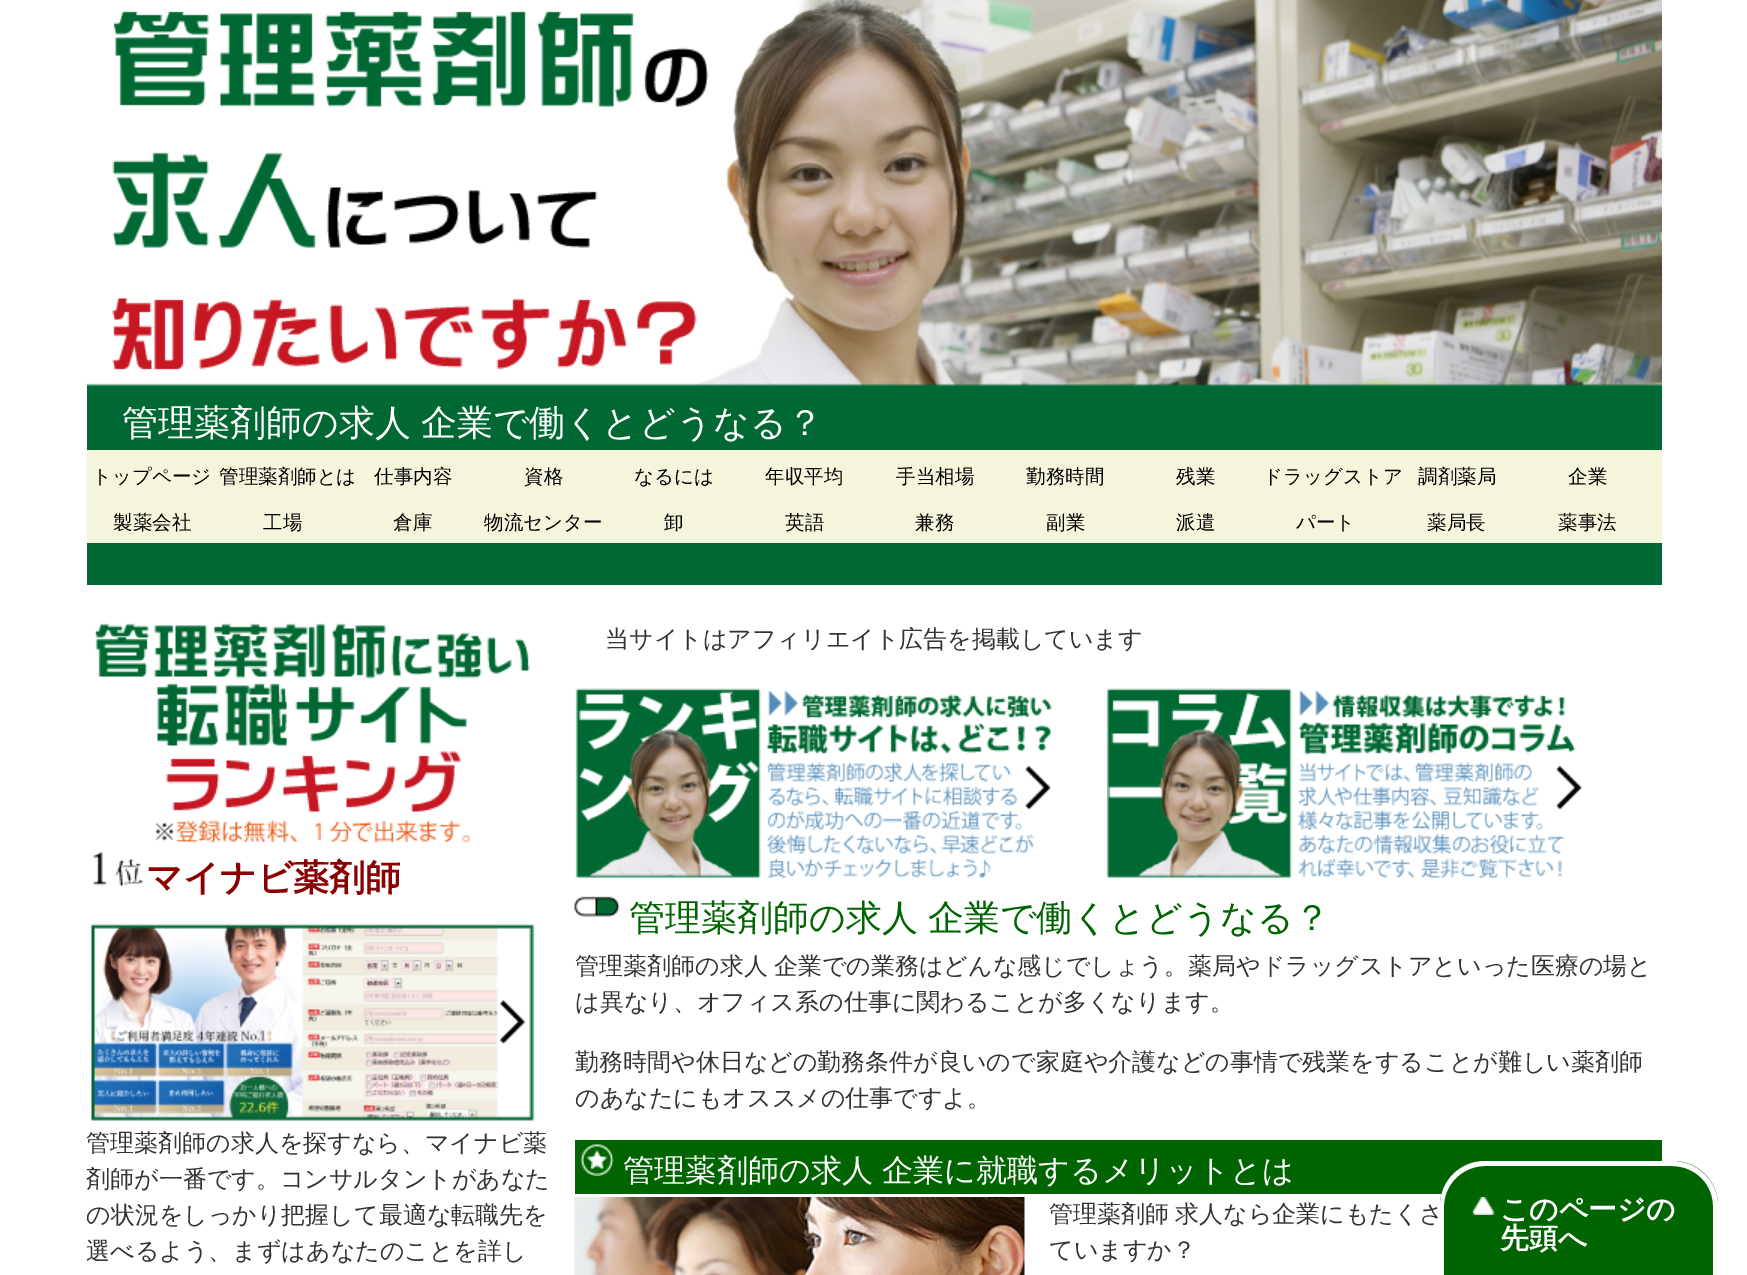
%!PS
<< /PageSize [1747 1275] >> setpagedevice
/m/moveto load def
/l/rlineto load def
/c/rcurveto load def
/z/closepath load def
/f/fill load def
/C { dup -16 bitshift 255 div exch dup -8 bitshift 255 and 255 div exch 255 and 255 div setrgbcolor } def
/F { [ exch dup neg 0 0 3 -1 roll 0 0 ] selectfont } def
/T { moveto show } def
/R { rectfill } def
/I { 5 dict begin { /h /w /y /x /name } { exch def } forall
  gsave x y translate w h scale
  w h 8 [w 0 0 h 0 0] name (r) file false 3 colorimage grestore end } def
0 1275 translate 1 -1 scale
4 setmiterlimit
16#FFFFFF C
0 0 1747 1275 R
(1.rgb) 87 0 1575 450 I
/WenQuanYiZenHei-Medium 36 F
122 435 m -1 0 32 (管理薬剤師の求人 企業で働くとどうなる？) widthshow
16#006933 C
87 543 1575 42 R
16#F5F5DC C
87 450 1575 93 R
/WenQuanYiZenHei-Medium 19.5 F
16#000000 C
(トップページ) 92 483 T
(管理薬剤師とは) 219 483 T
(仕事内容) 374 483 T
(資格) 524 483 T
(なるには) 634 483 T
(年収平均) 765 483 T
(手当相場) 896 483 T
(勤務時間) 1026 483 T
(残業) 1176 483 T
(ドラッグストア) 1263 483 T
(調剤薬局) 1418 483 T
(企業) 1568 483 T
(製薬会社) 113 529 T
(工場) 263 529 T
(倉庫) 393 529 T
(物流センター) 484 529 T
(卸) 664 529 T
(英語) 785 529 T
(兼務) 915 529 T
(副業) 1046 529 T
(派遣) 1176 529 T
(パート) 1296 529 T
(薬局長) 1427 529 T
(薬事法) 1558 529 T
(2.rgb) 94 623 436 221 I
(3.rgb) 93 851 50 36 I
/WenQuanYiZenHei-Bold 36 F
16#8B0000 C
(マイナビ薬剤師) 146 890 T
(4.rgb) 91 923 444 198 I
/WenQuanYiZenHei-Medium 24 F
16#333333 C
(管理薬剤師の求人を探すなら、マイナビ薬) 86 1151 T
(剤師が一番です。コンサルタントがあなた) 86 1187 T
(の状況をしっかり把握して最適な転職先を) 86 1223 T
(選べるよう、まずはあなたのことを詳し) 86 1259 T
(当サイトはアフィリエイト広告を掲載しています) 605 647 T
(5.rgb) 575 688 477 190 I
(6.rgb) 1106 688 476 190 I
(7.rgb) 574 896 46 21 I
/WenQuanYiZenHei-Medium 36 F
16#006400 C
629 930 m -1 0 32 (管理薬剤師の求人 企業で働くとどうなる？) widthshow
/WenQuanYiZenHei-Medium 24 F
16#333333 C
575 974 m -1 0 32 (管理薬剤師の求人 企業での業務はどんな感じでしょう。薬局やドラッグストアといった医療の場と) widthshow
(は異なり、オフィス系の仕事に関わることが多くなります。) 575 1010 T
(勤務時間や休日などの勤務条件が良いので家庭や介護などの事情で残業をすることが難しい薬剤師) 575 1070 T
(のあなたにもオススメの仕事ですよ。) 575 1106 T
16#006400 C
575 1140 1087 54 R
(8.rgb) 580 1144 34 32 I
/WenQuanYiZenHei-Medium 31.2 F
16#FFFFFF C
623 1181 m -1 0 32 (管理薬剤師の求人 企業に就職するメリットとは) widthshow
(9.rgb) 574 1197 451 78 I
/WenQuanYiZenHei-Medium 24 F
16#333333 C
1049 1222 m -1 0 32 (管理薬剤師 求人なら企業にもたくさ) widthshow
(ていますか？) 1049 1258 T
16#006400 C
1485 1161 m 188 0 l 25 0 45 20 45 45 c 0 69 l -278 0 l 0 -69 l 0 -25 20 -45 45 -45 c z f
(10.rgb) 1472 1197 23 18 I
16#FFFFFF C
1485 1161 m 187 0 l 25 0 46 20 46 45 c 0 69 l -278 0 l 0 -69 l 0 -25 20 -45 45 -45 c z 1485 1166 m 187 0 l 23 0 41 18 41 40 c 0 69 l -269 0 l 0 -69 l 0 -22 19 -40 41 -40 c z eofill
/WenQuanYiZenHei-Bold 28.75 F
(このページの) 1500 1219 T
(先頭へ) 1500 1248 T
showpage
